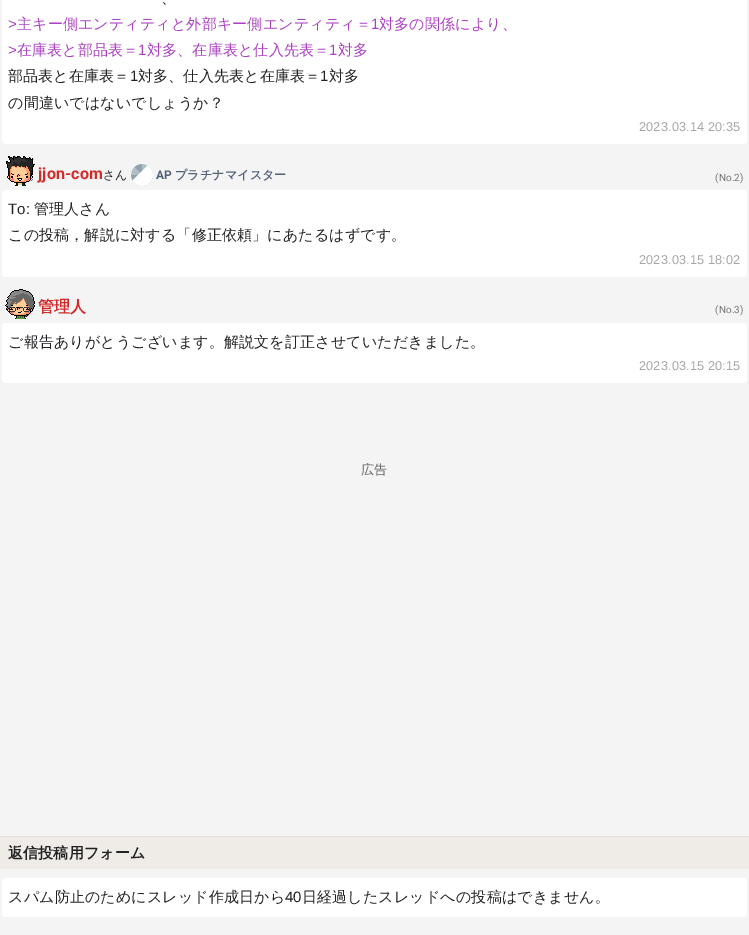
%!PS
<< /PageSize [749 935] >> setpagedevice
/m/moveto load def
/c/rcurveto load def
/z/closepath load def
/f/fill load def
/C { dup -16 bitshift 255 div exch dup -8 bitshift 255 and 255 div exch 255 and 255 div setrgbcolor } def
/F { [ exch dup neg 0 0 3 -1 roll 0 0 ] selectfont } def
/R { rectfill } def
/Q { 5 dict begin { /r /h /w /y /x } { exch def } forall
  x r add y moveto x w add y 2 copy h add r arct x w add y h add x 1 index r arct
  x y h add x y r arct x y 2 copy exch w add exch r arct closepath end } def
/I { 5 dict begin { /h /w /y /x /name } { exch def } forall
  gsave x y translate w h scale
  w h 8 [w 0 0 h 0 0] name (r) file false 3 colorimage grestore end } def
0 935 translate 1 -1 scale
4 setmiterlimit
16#F4F4F4 C
0 0 749 935 R
16#FFFFFF C
2 -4 745 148 4 Q f
/WenQuanYiZenHei-Medium 15 F
16#222225 C
161 3 m .15 0 (、) ashow
/LiberationSans-Regular 15 F
16#AB40C3 C
8 29 m .15 0 (>) ashow
/WenQuanYiZenHei-Medium 15 F
17 29 m .15 0 (主キー側エンティティと外部キー側エンティティ＝) ashow
/LiberationSans-Regular 15 F
371 29 m .15 0 (1) ashow
/WenQuanYiZenHei-Medium 15 F
379 29 m .15 0 (対多の関係により、) ashow
/LiberationSans-Regular 15 F
8 55 m .15 0 (>) ashow
/WenQuanYiZenHei-Medium 15 F
17 55 m .15 0 (在庫表と部品表＝) ashow
/LiberationSans-Regular 15 F
138 55 m .15 0 (1) ashow
/WenQuanYiZenHei-Medium 15 F
147 55 m .15 0 (対多、在庫表と仕入先表＝) ashow
/LiberationSans-Regular 15 F
329 55 m .15 0 (1) ashow
/WenQuanYiZenHei-Medium 15 F
338 55 m .15 0 (対多) ashow
16#222225 C
8 81 m .15 0 (部品表と在庫表＝) ashow
/LiberationSans-Regular 15 F
130 81 m .15 0 (1) ashow
/WenQuanYiZenHei-Medium 15 F
138 81 m .15 0 (対多、仕入先表と在庫表＝) ashow
/LiberationSans-Regular 15 F
320 81 m .15 0 (1) ashow
/WenQuanYiZenHei-Medium 15 F
329 81 m .15 0 (対多) ashow
8 108 m .15 0 (の間違いではないでしょうか？) ashow
/LiberationSans-Regular 12.75 F
16#A6A6A6 C
639 131 m .15 0 (2023.03.14 20:35) ashow
(1.rgb) 6 156 29 30 I
/Roboto-Bold 16 F
16#D52A2A C
38 179 m .15 0 (jjon-com) ashow
/WenQuanYiZenHei-Medium 12 F
16#222225 C
103 179 m .15 0 (さん) ashow
(2.rgb) 131 164 22 22 I
16#FFFFFF C
147.5 165.5 m 11 6.5 4 23.5 -8.5 20 c -2.5 -.5 -5 -2.5 -6.5 -5 c z f
/Roboto-Bold 12 F
16#526378 C
156 179 m .15 0 (AP) ashow
/WenQuanYiZenHei-Bold 12 F
175 179 m .15 0 (プラチナマイスター) ashow
/Roboto-Regular 10 F
16#777777 C
715 181 m .15 0 (\(No.2\)) ashow
16#FFFFFF C
2 190 745 87 4 Q f
/LiberationSans-Regular 15 F
16#222225 C
8 214 m .15 0 (To:) ashow
/WenQuanYiZenHei-Medium 15 F
34 214 m .15 0 (管理人さん) ashow
8 240 m .15 0 (この投稿，解説に対する「修正依頼」にあたるはずです。) ashow
/LiberationSans-Regular 12.75 F
16#A6A6A6 C
639 264 m .15 0 (2023.03.15 18:02) ashow
(3.rgb) 5 289 30 30 I
/WenQuanYiZenHei-Bold 16 F
16#D52A2A C
38 312 m .15 0 (管理人) ashow
/Roboto-Regular 10 F
16#777777 C
715 313 m .15 0 (\(No.3\)) ashow
16#FFFFFF C
2 323 745 60 4 Q f
/WenQuanYiZenHei-Medium 15 F
16#222225 C
8 347 m .15 0 (ご報告ありがとうございます。解説文を訂正させていただきました。) ashow
/LiberationSans-Regular 12.75 F
16#A6A6A6 C
639 370 m .15 0 (2023.03.15 20:15) ashow
/WenQuanYiZenHei-Medium 13 F
16#666666 C
361 474 m .15 0 (広告) ashow
16#EFEBE6 C
0 837 749 32 R
16#E4E0DC C
0 836 749 1 R
/WenQuanYiZenHei-Bold 15 F
16#222225 C
8 858 m .15 0 (返信投稿用フォーム) ashow
16#FFFFFF C
2 878 745 39 4 Q f
/WenQuanYiZenHei-Medium 15 F
16#222225 C
8 902 m .15 0 (スパム防止のためにスレッド作成日から) ashow
/LiberationSans-Regular 15 F
285 902 m .15 0 (40) ashow
/WenQuanYiZenHei-Medium 15 F
302 902 m .15 0 (日経過したスレッドへの投稿はできません。) ashow
showpage
